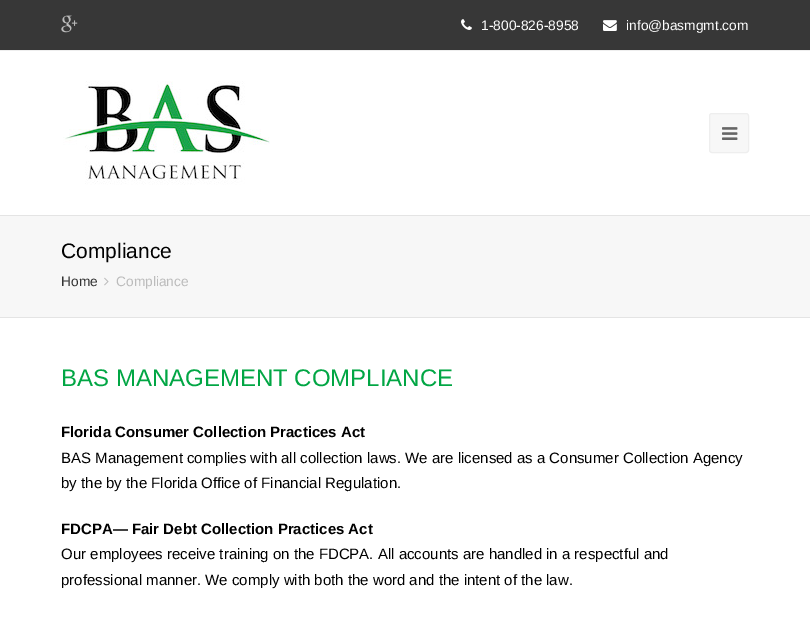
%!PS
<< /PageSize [810 619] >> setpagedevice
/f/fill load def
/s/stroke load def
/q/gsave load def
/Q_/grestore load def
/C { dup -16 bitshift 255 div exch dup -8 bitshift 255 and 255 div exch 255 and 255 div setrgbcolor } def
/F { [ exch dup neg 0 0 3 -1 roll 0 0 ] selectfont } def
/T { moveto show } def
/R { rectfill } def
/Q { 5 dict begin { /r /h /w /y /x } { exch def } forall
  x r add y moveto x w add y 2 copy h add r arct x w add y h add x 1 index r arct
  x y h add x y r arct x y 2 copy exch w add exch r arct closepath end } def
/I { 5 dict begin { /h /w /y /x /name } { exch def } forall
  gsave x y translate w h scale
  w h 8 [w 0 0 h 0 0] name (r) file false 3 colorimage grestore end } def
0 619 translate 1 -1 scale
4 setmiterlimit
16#FFFFFF C
0 0 810 619 R
16#373737 C
0 0 810 50 R
16#EEEEEE C
0 50 810 1 R
(1.rgb) 61 15 17 18 I
(2.rgb) 461 19 11 11 I
/LiberationSans-Regular 13.75 F
16#FFFFFF C
(1-800-826-8958) 481 30 T
(3.rgb) 603 20 14 11 I
(info@basmgmt.com) 626 30 T
(4.rgb) 63 81 207 104 I
16#F7F7F7 C
709.5 113.5 39 39 2.5 Q q f Q_
16#EEEEEE C
s
(5.rgb) 722 127 16 13 I
16#F7F7F7 C
0 216 810 101 R
16#E4E4E4 C
0 215 810 1 R
0 317 810 1 R
/LiberationSans-Regular 21 F
16#000000 C
(Compliance) 61 258 T
/LiberationSans-Regular 13.75 F
16#333333 C
(Home) 61 286 T
(6.rgb) 104 277 5 9 I
16#BCBCBC C
(Compliance) 116 286 T
/LiberationSans-Regular 24 F
16#01A644 C
(BAS MANAGEMENT COMPLIANCE) 61 386 T
/LiberationSans-Bold 15 F
16#000000 C
(Florida Consumer Collection Practices Act) 61 437 T
/LiberationSans-Regular 15 F
(BAS Management complies with all collection laws. We are licensed as a Consumer Collection Agency) 61 463 T
(by the by the Florida Office of Financial Regulation.) 61 488 T
/LiberationSans-Bold 15 F
(FDCPA— Fair Debt Collection Practices Act) 61 534 T
/LiberationSans-Regular 15 F
(Our employees receive training on the FDCPA. All accounts are handled in a respectful and) 61 559 T
(professional manner. We comply with both the word and the intent of the law.) 61 585 T
showpage
